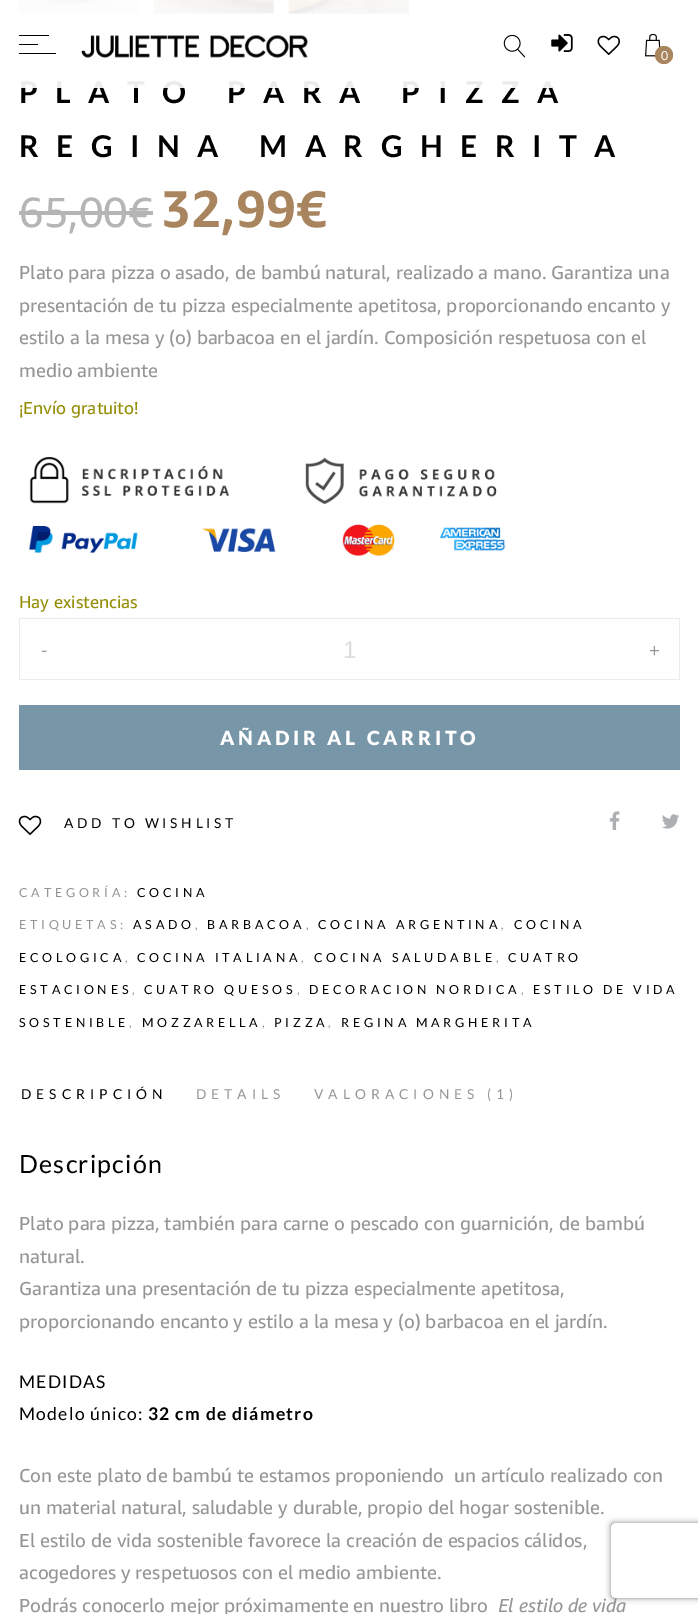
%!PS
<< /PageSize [698 1614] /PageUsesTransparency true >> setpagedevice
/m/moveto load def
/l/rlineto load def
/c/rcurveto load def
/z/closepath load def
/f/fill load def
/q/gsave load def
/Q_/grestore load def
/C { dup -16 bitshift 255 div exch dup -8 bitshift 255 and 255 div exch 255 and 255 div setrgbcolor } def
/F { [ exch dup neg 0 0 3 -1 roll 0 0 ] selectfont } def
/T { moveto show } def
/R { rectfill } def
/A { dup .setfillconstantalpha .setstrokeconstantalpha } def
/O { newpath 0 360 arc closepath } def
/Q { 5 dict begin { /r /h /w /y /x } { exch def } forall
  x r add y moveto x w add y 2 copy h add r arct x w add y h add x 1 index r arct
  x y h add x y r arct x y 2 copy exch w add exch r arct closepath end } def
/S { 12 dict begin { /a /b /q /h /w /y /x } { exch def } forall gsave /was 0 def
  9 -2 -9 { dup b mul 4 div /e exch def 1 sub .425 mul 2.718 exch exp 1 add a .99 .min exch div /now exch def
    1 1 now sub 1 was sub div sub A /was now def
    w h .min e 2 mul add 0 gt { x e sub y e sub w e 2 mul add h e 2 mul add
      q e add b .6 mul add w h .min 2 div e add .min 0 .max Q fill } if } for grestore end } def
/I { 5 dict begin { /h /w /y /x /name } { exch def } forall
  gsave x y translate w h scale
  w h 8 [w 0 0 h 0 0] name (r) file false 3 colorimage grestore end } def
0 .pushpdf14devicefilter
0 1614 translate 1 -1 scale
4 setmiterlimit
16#FFFFFF C
0 0 698 1614 R
(6.rgb) 18 0 121 14 I
(7.rgb) 153 0 121 14 I
(8.rgb) 288 0 121 14 I
/Lato-Bold 30 F
16#000000 C
19 103 m 17.5 0 (PLATO PARA PIZZA) ashow
0.92 A
16#FFFFFF C
18 0 534 88 R
1 A
16#000000 C
19 35 30 1 R
19 44 19 1 R
19 53 37 1 R
(1.rgb) 81 35 227 23 I
(2.rgb) 503 34 23 24 I
(3.rgb) 551 34 22 18 I
(4.rgb) 597 35 23 20 I
(5.rgb) 645 33 16 24 I
16#A8855E C
664 55 9 O f
/Lato-Regular 12.5 F
16#FFFFFF C
(0) 661 60 T
/Lato-Bold 30 F
16#000000 C
19 157 m 17.5 0 (REGINA MARGHERITA) ashow
/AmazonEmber-Regular 42 F
16#B5B5B5 C
(65,00€) 19 227 T
19 211 134 4 R
/AmazonEmber-Bold 51.5 F
16#A8855E C
(32,99€) 161 227 T
/AmazonEmber-Regular 18.75 F
16#959595 C
(Plato para pizza o asado, de bambú natural, realizado a mano. Garantiza una) 19 279 T
(presentación de tu pizza especialmente apetitosa, proporcionando encanto y) 19 312 T
(estilo a la mesa y \(o\) barbacoa en el jardín. Composición respetuosa con el) 19 344 T
(medio ambiente) 19 377 T
/AmazonEmber-Regular 17.25 F
16#958E09 C
(¡Envío gratuito!) 19 414 T
(9.rgb) 28 457 478 100 I
(Hay existencias) 19 608 T
16#EBEBEB C
19 618 50 1 R
19 679 50 1 R
19 618 1 62 R
/Lato-Regular 18.75 F
16#959595 C
(-) 41 657 T
/LiberationSans-Regular 24 F
16#DCDCDC C
(1) 343 658 T
16#EBEBEB C
69 618 611 1 R
679 618 1 62 R
69 679 611 1 R
/Lato-Regular 18.75 F
16#959595 C
(+) 649 657 T
16#7796A8 C
19 705 661 65 R
/Lato-Black 19.5 F
16#FFFFFF C
220 745 m 3.75 0 (AÑADIR AL CARRITO) ashow
(10.rgb) 18 815 24 20 I
/Lato-Regular 13.75 F
16#000000 C
64 828 m 3.75 0 (ADD TO WISHLIST) ashow
(11.rgb) 609 811 11 19 I
(12.rgb) 662 814 18 15 I
/Lato-Regular 12.5 F
16#959595 C
19 897 m 3.75 0 (CATEGORÍA:) ashow
16#000000 C
137 897 m 3.75 0 (COCINA) ashow
16#959595 C
19 929 m 3.75 0 (ETIQUETAS:) ashow
16#000000 C
133 929 m 3.75 0 (ASADO) ashow
16#959595 C
195 929 m 3.75 0 (,) ashow
16#000000 C
207 929 m 3.75 0 (BARBACOA) ashow
16#959595 C
306 929 m 3.75 0 (,) ashow
16#000000 C
318 929 m 3.75 0 (COCINA ARGENTINA) ashow
16#959595 C
501 929 m 3.75 0 (,) ashow
16#000000 C
514 929 m 3.75 0 (COCINA) ashow
19 962 m 3.75 0 (ECOLOGICA) ashow
16#959595 C
125 962 m 3.75 0 (,) ashow
16#000000 C
137 962 m 3.75 0 (COCINA ITALIANA) ashow
16#959595 C
301 962 m 3.75 0 (,) ashow
16#000000 C
314 962 m 3.75 0 (COCINA SALUDABLE) ashow
16#959595 C
496 962 m 3.75 0 (,) ashow
16#000000 C
508 962 m 3.75 0 (CUATRO) ashow
19 994 m 3.75 0 (ESTACIONES) ashow
16#959595 C
132 994 m 3.75 0 (,) ashow
16#000000 C
144 994 m 3.75 0 (CUATRO QUESOS) ashow
16#959595 C
297 994 m 3.75 0 (,) ashow
16#000000 C
309 994 m 3.75 0 (DECORACION NORDICA) ashow
16#959595 C
521 994 m 3.75 0 (,) ashow
16#000000 C
533 994 m 3.75 0 (ESTILO DE VIDA) ashow
19 1027 m 3.75 0 (SOSTENIBLE) ashow
16#959595 C
129 1027 m 3.75 0 (,) ashow
16#000000 C
142 1027 m 3.75 0 (MOZZARELLA) ashow
16#959595 C
262 1027 m 3.75 0 (,) ashow
16#000000 C
274 1027 m 3.75 0 (PIZZA) ashow
16#959595 C
328 1027 m 3.75 0 (,) ashow
16#000000 C
341 1027 m 3.75 0 (REGINA MARGHERITA) ashow
/Lato-Regular 13.75 F
21 1099 m 5 0 (DESCRIPCIÓN) ashow
16#959595 C
196 1099 m 5 0 (DETAILS) ashow
314 1099 m 5 0 (VALORACIONES \(1\)) ashow
/Lato-Regular 25 F
16#000000 C
19 1173 m 1.25 0 (Descripción) ashow
/AmazonEmber-Regular 18.75 F
16#959595 C
(Plato para pizza, también para carne o pescado con guarnición, de bambú) 19 1230 T
(natural.) 19 1263 T
(Garantiza una presentación de tu pizza especialmente apetitosa,) 19 1295 T
(proporcionando encanto y estilo a la mesa y \(o\) barbacoa en el jardín.) 19 1328 T
/Lato-Regular 17.5 F
16#000000 C
19 1388 m 1.25 0 (MEDIDAS) ashow
19 1420 m 1.25 0 (Modelo único:) ashow
/Lato-Bold 17.5 F
148 1420 m 1.25 0 (32 cm de diámetro) ashow
/AmazonEmber-Regular 18.75 F
16#959595 C
(Con este plato de bambú te estamos proponiendo  un artículo realizado con) 19 1482 T
(un material natural, saludable y durable, propio del hogar sostenible.) 19 1514 T
(El estilo de vida sostenible favorece la creación de espacios cálidos,) 19 1547 T
(acogedores y respetuosos con el medio ambiente.) 19 1579 T
(Podrás conocerlo mejor próximamente en nuestro libro) 19 1612 T
/AmazonEmber-Italic 18.75 F
(El estilo de vida) 498 1612 T
q
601 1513 m 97 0 l 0 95 l -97 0 l z 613.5 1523 m 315 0 l 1.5 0 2.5 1 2.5 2.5 c 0 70 l 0 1.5 -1 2.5 -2.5 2.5 c -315 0 l -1.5 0 -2.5 -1 -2.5 -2.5 c 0 -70 l 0 -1.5 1 -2.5 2.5 -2.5 c z eoclip newpath
16#808080 C
611 1523 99 75 2.5 3 1 S
Q_
.poppdf14devicefilter showpage
